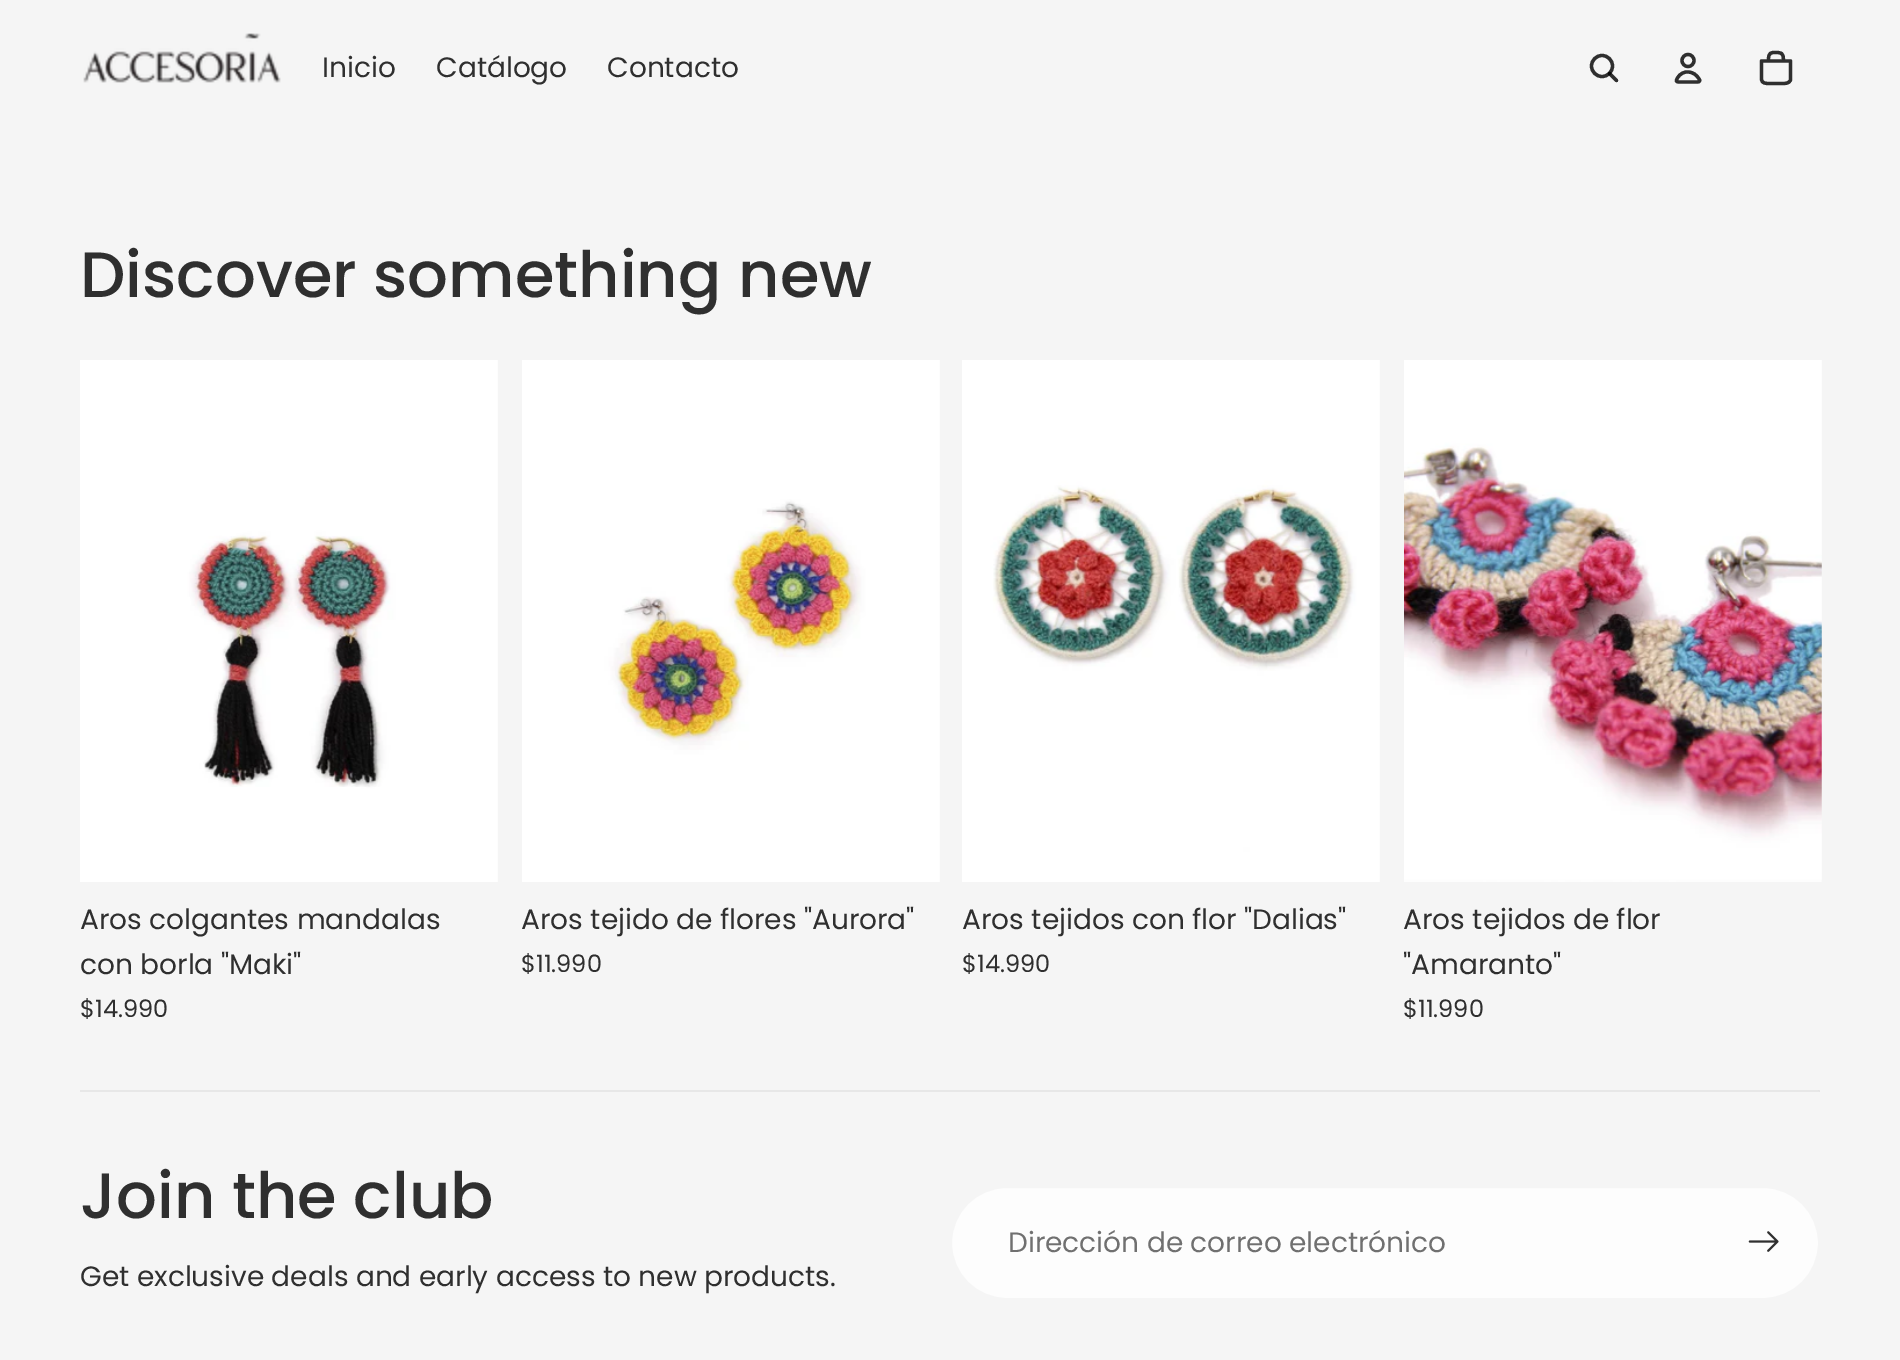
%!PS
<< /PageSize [1900 1360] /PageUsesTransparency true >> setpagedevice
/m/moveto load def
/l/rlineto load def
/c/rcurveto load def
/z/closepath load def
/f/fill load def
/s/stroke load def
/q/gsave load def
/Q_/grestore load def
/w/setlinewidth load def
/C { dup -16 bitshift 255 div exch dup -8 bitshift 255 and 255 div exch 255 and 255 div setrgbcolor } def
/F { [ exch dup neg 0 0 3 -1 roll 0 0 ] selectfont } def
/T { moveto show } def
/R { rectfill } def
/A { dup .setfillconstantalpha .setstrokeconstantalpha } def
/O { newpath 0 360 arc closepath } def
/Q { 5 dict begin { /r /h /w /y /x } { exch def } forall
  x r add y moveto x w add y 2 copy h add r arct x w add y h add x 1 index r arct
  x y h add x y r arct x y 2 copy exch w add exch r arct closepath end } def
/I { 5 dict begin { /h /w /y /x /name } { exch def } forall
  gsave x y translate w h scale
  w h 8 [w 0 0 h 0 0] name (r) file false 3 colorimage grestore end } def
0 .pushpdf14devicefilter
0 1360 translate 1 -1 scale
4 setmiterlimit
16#F5F5F5 C
0 0 1900 1360 R
(1.rgb) 83 33 198 50 I
/Poppins-Regular 28 F
16#2F2F2F C
(Inicio) 322 77 T
(Catálogo) 436 77 T
(Contacto) 607 77 T
3.3 w
1602 66 10.5 O s
0.81 A
16#000000 C
1 setlinecap
1 setlinejoin
1609.5 73.5 m 7 7 l s
1 A
16#2F2F2F C
0 setlinecap
0 setlinejoin
1688 60.5 6 O s
1 setlinecap
1 setlinejoin
1677.5 78 m -2.5 4 -1 4 3.5 4 c 14 0 l .5 0 4 .5 4.5 -1 c .5 -.5 0 -1.5 -.5 -2 c -4.5 -8.5 -16.5 -10 -21.5 -1 c s
1761.5 61 m 29 0 l 0 19 l -1.5 3.5 -5 3.5 -8 3.5 c -13 0 l -3.5 0 -8 0 -8 -4.5 c z 1773.5 52.5 m 8 0 10 -.5 10 8.5 c -15 0 l 0 -3.5 -.5 -8.5 5 -8.5 c s
/Poppins-Medium 64 F
(Discover something new) 80 297 T
(2.rgb) 80 360 418 522 I
/Poppins-Regular 28 F
(Aros colgantes mandalas) 80 929 T
(con borla "Maki") 80 974 T
/Poppins-Regular 24 F
($14.990) 80 1017 T
(3.rgb) 522 360 418 522 I
/Poppins-Regular 28 F
(Aros tejido de flores "Aurora") 521 929 T
/Poppins-Regular 24 F
($11.990) 521 972 T
(4.rgb) 962 360 418 522 I
/Poppins-Regular 28 F
(Aros tejidos con flor "Dalias") 962 929 T
/Poppins-Regular 24 F
($14.990) 962 972 T
(5.rgb) 1404 360 418 522 I
/Poppins-Regular 28 F
(Aros tejidos de flor) 1403 929 T
("Amaranto") 1403 974 T
/Poppins-Regular 24 F
($11.990) 1403 1017 T
16#E6E6E6 C
1820 1090 m 0 2 l -2 -2 l z f
0.06 A
16#000000 C
1820 1092 m -1740 0 l 0 -2 l 1738 0 l z f
/Poppins-Medium 64 F
1 A
16#2F2F2F C
(Join the club) 80 1218 T
/Poppins-Regular 28 F
(Get exclusive deals and early access to new products.) 80 1286 T
16#FDFDFD C
951 1187 868 112 56 Q q f Q_
16#F5F5F5 C
2 w
0 setlinecap
0 setlinejoin
s
16#707070 C
(Dirección de correo electrónico) 1008 1252 T
(6.rgb) 1748 1231 31 21 I
.poppdf14devicefilter showpage
